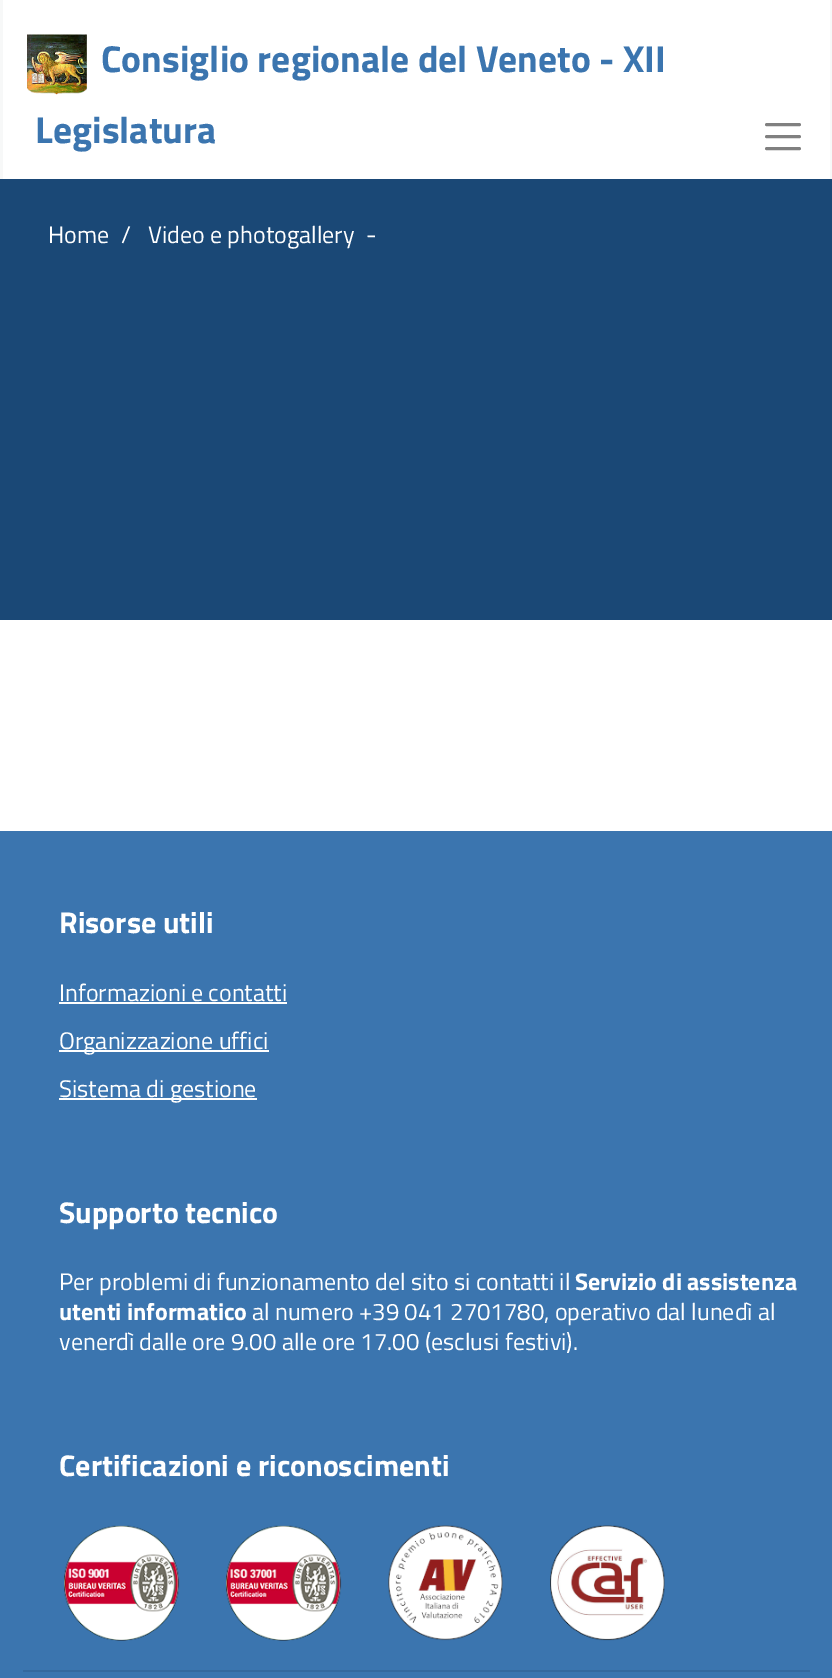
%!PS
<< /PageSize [832 1678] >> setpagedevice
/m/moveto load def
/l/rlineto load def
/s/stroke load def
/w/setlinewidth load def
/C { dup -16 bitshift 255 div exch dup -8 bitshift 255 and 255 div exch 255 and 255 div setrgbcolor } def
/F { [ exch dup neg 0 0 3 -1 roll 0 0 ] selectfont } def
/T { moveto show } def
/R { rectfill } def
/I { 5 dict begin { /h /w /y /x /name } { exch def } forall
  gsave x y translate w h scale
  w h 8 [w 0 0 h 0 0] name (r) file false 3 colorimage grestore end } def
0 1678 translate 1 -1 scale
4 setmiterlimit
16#FFFFFF C
0 0 832 1678 R
16#F7F8F8 C
830 0 2 179 R
0 0 3 179 R
(1.rgb) 27 34 60 61 I
/TitilliumWeb-Bold 37.5 F
16#3B75AF C
(Consiglio regionale del Veneto - XII) 101 72 T
(Legislatura) 35 143 T
16#808080 C
3 w
1 setlinecap
766.5 124.5 m 33 0 l 766.5 136.5 m 33 0 l 766.5 148.5 m 33 0 l s
16#1A4876 C
0 179 832 441 R
/TitilliumWeb-Regular 24 F
16#FFFFFF C
(Home) 48 243 T
(/) 121 243 T
(Video e photogallery) 148 243 T
(-) 366 243 T
16#3B75AF C
0 831 832 847 R
/TitilliumWeb-Bold 30 F
16#FFFFFF C
(Risorse utili) 59 933 T
/TitilliumWeb-Regular 24 F
(Informazioni e contatti) 59 1001 T
59 1002 228 2 R
59 1050 210 2 R
(Organizzazione uffici) 59 1049 T
59 1098 198 2 R
(Sistema di gestione) 59 1097 T
/TitilliumWeb-Bold 30 F
(Supporto tecnico) 59 1223 T
/TitilliumWeb-Regular 24 F
(Per problemi di funzionamento del sito si contatti il) 59 1290 T
/TitilliumWeb-Bold 24 F
(Servizio di assistenza) 575 1290 T
(utenti informatico) 59 1320 T
/TitilliumWeb-Regular 24 F
(al numero +39 041 2701780, operativo dal lunedì al) 252 1320 T
(venerdì dalle ore 9.00 alle ore 17.00 \(esclusi festivi\).) 59 1350 T
/TitilliumWeb-Bold 30 F
(Certificazioni e riconoscimenti) 59 1476 T
(2.rgb) 64 1525 116 116 I
(3.rgb) 226 1525 116 116 I
(4.rgb) 388 1525 115 116 I
(5.rgb) 550 1525 115 116 I
16#35699E C
23 1670 787 2 R
showpage
